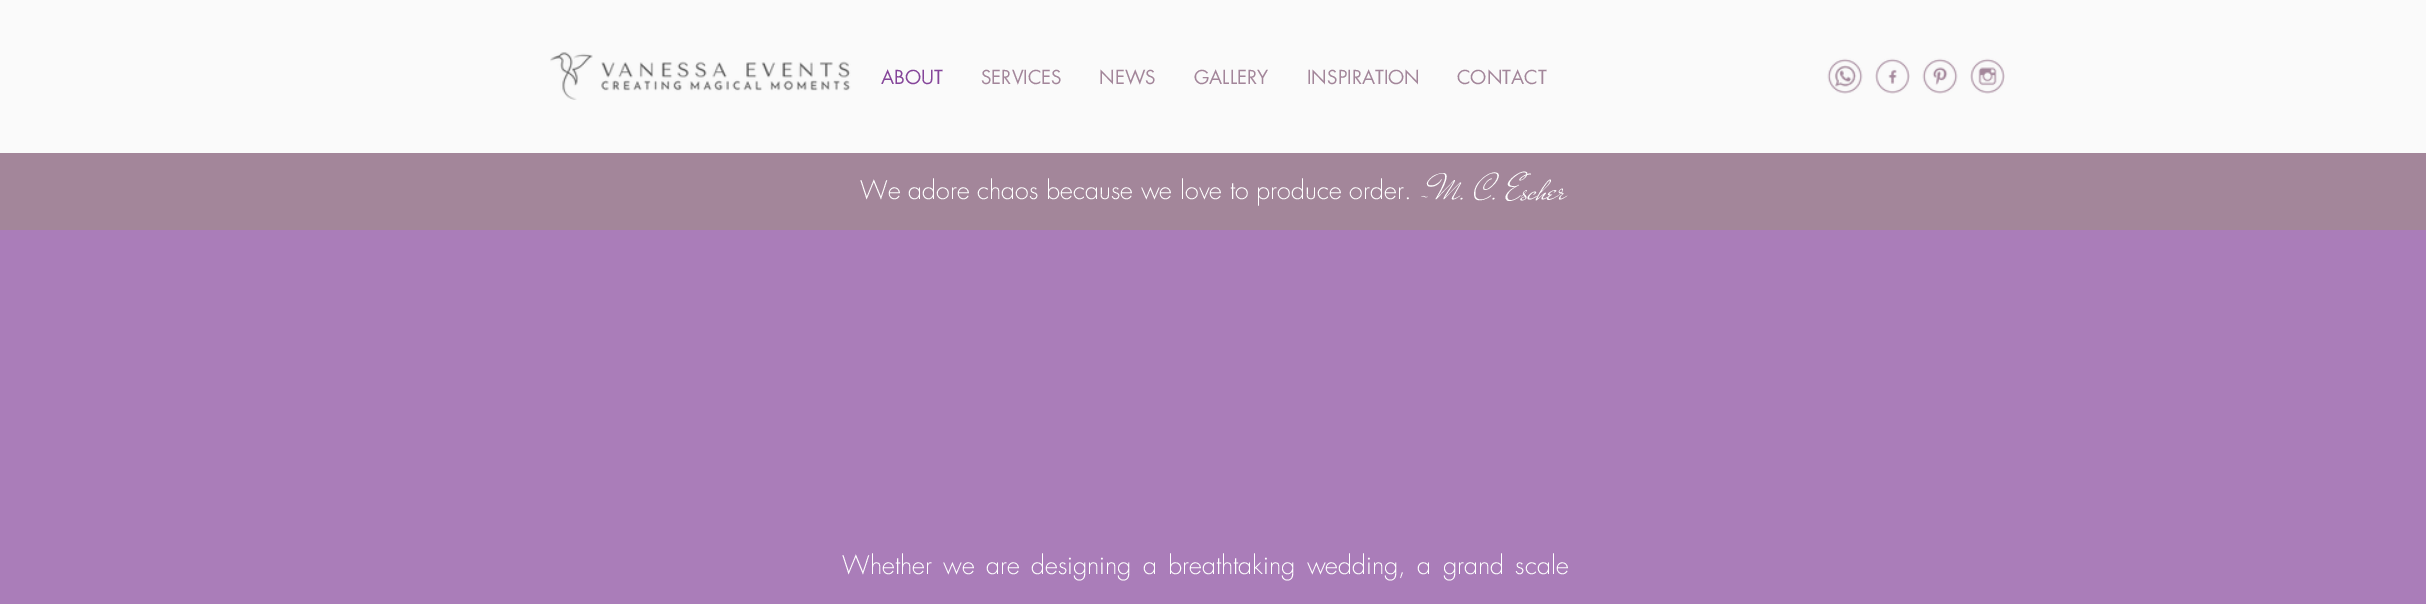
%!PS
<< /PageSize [2426 604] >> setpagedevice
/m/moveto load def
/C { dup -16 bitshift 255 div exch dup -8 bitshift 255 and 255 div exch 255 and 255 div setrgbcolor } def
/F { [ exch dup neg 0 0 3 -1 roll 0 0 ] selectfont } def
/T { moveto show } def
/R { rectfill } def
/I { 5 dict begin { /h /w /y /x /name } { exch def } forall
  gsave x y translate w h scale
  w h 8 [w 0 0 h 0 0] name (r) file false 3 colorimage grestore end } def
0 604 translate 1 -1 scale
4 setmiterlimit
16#FAFAFA C
0 0 2426 604 R
(1.rgb) 550 52 301 48 I
/futura-Regular 18.75 F
16#85459A C
(ABOUT) 881 84 T
16#A3869A C
(SERVICES) 981 84 T
(NEWS) 1099 84 T
(GALLERY) 1194 84 T
(INSPIRATION) 1307 84 T
(CONTACT) 1457 84 T
(2.rgb) 1827 58 36 36 I
(3.rgb) 1875 58 35 36 I
(4.rgb) 1922 58 36 36 I
(5.rgb) 1970 58 35 36 I
0 153 2426 77 R
/futura-Light 25 F
16#FFFFFF C
(We adore chaos because we love to produce order.) 860 199 T
/MrDeHaviland-Regular 25 F
(-) 1419 199 T
/MrDeHaviland-Regular 37.5 F
(M. C. Escher) 1436 199 T
16#AA7DB9 C
0 230 2426 374 R
/futura-Light 25 F
16#FFFFFF C
842 574 m 3.5 0 32 (Whether we are designing a breathtaking wedding, a grand scale) widthshow
showpage
